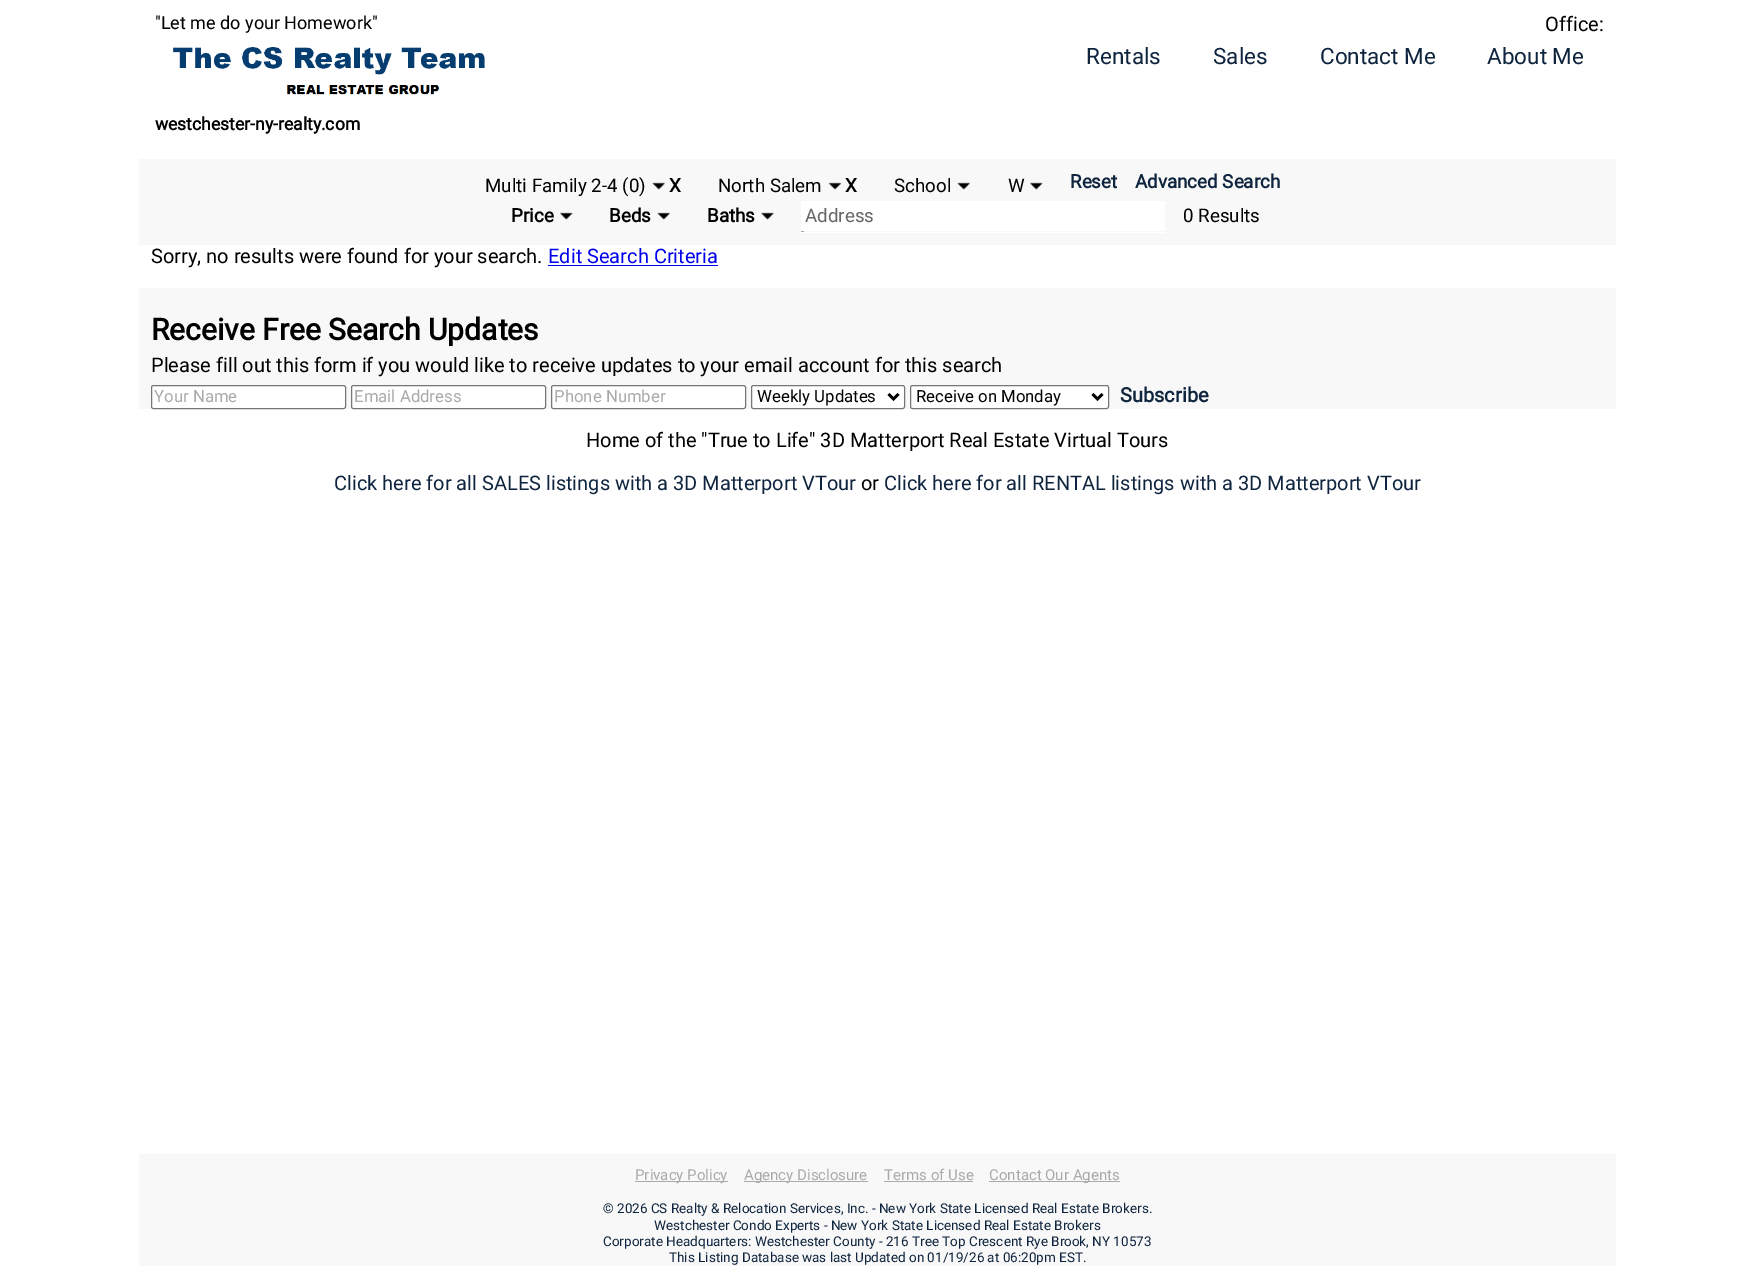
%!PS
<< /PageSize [1754 1278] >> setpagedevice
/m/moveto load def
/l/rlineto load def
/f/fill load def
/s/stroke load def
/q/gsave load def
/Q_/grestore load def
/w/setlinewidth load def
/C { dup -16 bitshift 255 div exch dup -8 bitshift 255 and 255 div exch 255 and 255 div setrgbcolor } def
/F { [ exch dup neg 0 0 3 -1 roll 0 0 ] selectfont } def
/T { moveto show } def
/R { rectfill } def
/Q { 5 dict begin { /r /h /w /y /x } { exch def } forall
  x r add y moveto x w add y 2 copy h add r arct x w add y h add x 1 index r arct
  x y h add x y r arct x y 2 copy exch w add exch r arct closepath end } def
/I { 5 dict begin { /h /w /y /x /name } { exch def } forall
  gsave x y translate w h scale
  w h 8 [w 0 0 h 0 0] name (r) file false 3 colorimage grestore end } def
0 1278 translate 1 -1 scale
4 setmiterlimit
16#FFFFFF C
0 0 1754 1278 R
/Roboto-Regular 18 F
16#000000 C
("Let me do your Homework") 155 29 T
(1.rgb) 173 47 312 48 I
/Roboto-Bold 17.5 F
(westchester-ny-realty.com) 155 130 T
/Roboto-Regular 20 F
(Office:) 1545 31 T
/Roboto-Regular 22.5 F
16#0F243E C
(Rentals) 1086 64 T
(Sales) 1213 64 T
(Contact Me) 1320 64 T
(About Me) 1487 64 T
16#F8F8F8 C
139 159 1477 86 R
(2.rgb) 652 182 13 8 I
/Roboto-Regular 18.75 F
16#000000 C
(Multi Family 2-4 \(0\)) 485 192 T
/Roboto-Bold 18.75 F
(X) 669 192 T
(3.rgb) 828 182 14 8 I
/Roboto-Regular 18.75 F
(North Salem) 718 192 T
/Roboto-Bold 18.75 F
(X) 845 192 T
(2.rgb) 957 182 13 8 I
/Roboto-Regular 18.75 F
(School) 894 192 T
(4.rgb) 1030 182 13 8 I
(W) 1008 192 T
/Roboto-Bold 18.75 F
16#0F243E C
(Reset) 1070 188 T
(Advanced Search) 1135 188 T
(5.rgb) 560 212 13 8 I
16#000000 C
(Price) 511 222 T
(6.rgb) 657 212 13 8 I
(Beds) 609 222 T
(7.rgb) 761 212 13 8 I
(Baths) 707 222 T
16#FFFFFF C
801 201 364 32 R
16#F8F8F8 C
801 231 364 1 R
/Roboto-Regular 18.75 F
16#666666 C
(Address) 805 222 T
16#AAAAAA C
801 231 3 1 R
16#000000 C
(0 Results) 1183 222 T
/Roboto-Regular 20 F
(Sorry, no results were found for your search.) 151 263 T
16#0000EE C
(Edit Search Criteria) 548 263 T
548 265 170 1 R
16#F8F8F8 C
139 288 1477 121 R
/Roboto-Bold 30 F
16#000000 C
(Receive Free Search Updates) 151 340 T
/Roboto-Regular 20 F
(Please fill out this form if you would like to receive updates to your email account for this search) 151 372 T
16#FFFFFF C
151.5 385.5 194 23 2 Q q f Q_
16#767676 C
s
/Roboto-Regular 16.75 F
16#AAAAAA C
(Your Name) 154 402 T
16#FFFFFF C
351.5 385.5 194 23 2 Q q f Q_
16#767676 C
s
16#AAAAAA C
(Email Address) 354 402 T
16#FFFFFF C
551.5 385.5 194 23 2 Q q f Q_
16#767676 C
s
16#AAAAAA C
(Phone Number) 554 402 T
16#FFFFFF C
751.5 385.5 153 23 2 Q q f Q_
16#767676 C
s
16#000000 C
2.5 w
888.5 394 m 5 5 l 5 -5 l s
(Weekly Updates) 757 402 T
16#FFFFFF C
910.5 385.5 198 23 2 Q q f Q_
16#767676 C
1 w
s
16#000000 C
2.5 w
1092.5 394 m 5 5 l 5 -5 l s
(Receive on Monday) 916 402 T
/Roboto-Bold 20 F
16#0F243E C
(Subscribe) 1120 402 T
/Roboto-Regular 20 F
16#000000 C
(Home of the "True to Life" 3D Matterport Real Estate Virtual Tours) 586 447 T
16#0F243E C
(Click here for all SALES listings with a 3D Matterport VTour) 334 490 T
16#000000 C
(or) 861 490 T
16#0F243E C
(Click here for all RENTAL listings with a 3D Matterport VTour) 884 490 T
16#F8F8F8 C
139 1154 1477 112 R
16#AAAAAA C
635 1181 93 1 R
/Roboto-Regular 15 F
(Privacy Policy) 635 1180 T
744 1181 124 1 R
(Agency Disclosure) 744 1180 T
(Terms of Use) 884 1180 T
884 1181 89 1 R
989 1181 131 1 R
(Contact Our Agents) 989 1180 T
/Roboto-Regular 13.5 F
16#0F243E C
(© 2026 CS Realty & Relocation Services, Inc. - New York State Licensed Real Estate Brokers.) 603 1213 T
(Westchester Condo Experts - New York State Licensed Real Estate Brokers) 654 1230 T
(Corporate Headquarters: Westchester County - 216 Tree Top Crescent Rye Brook, NY 10573) 603 1246 T
(This Listing Database was last Updated on 01/19/26 at 06:20pm EST.) 669 1262 T
showpage
